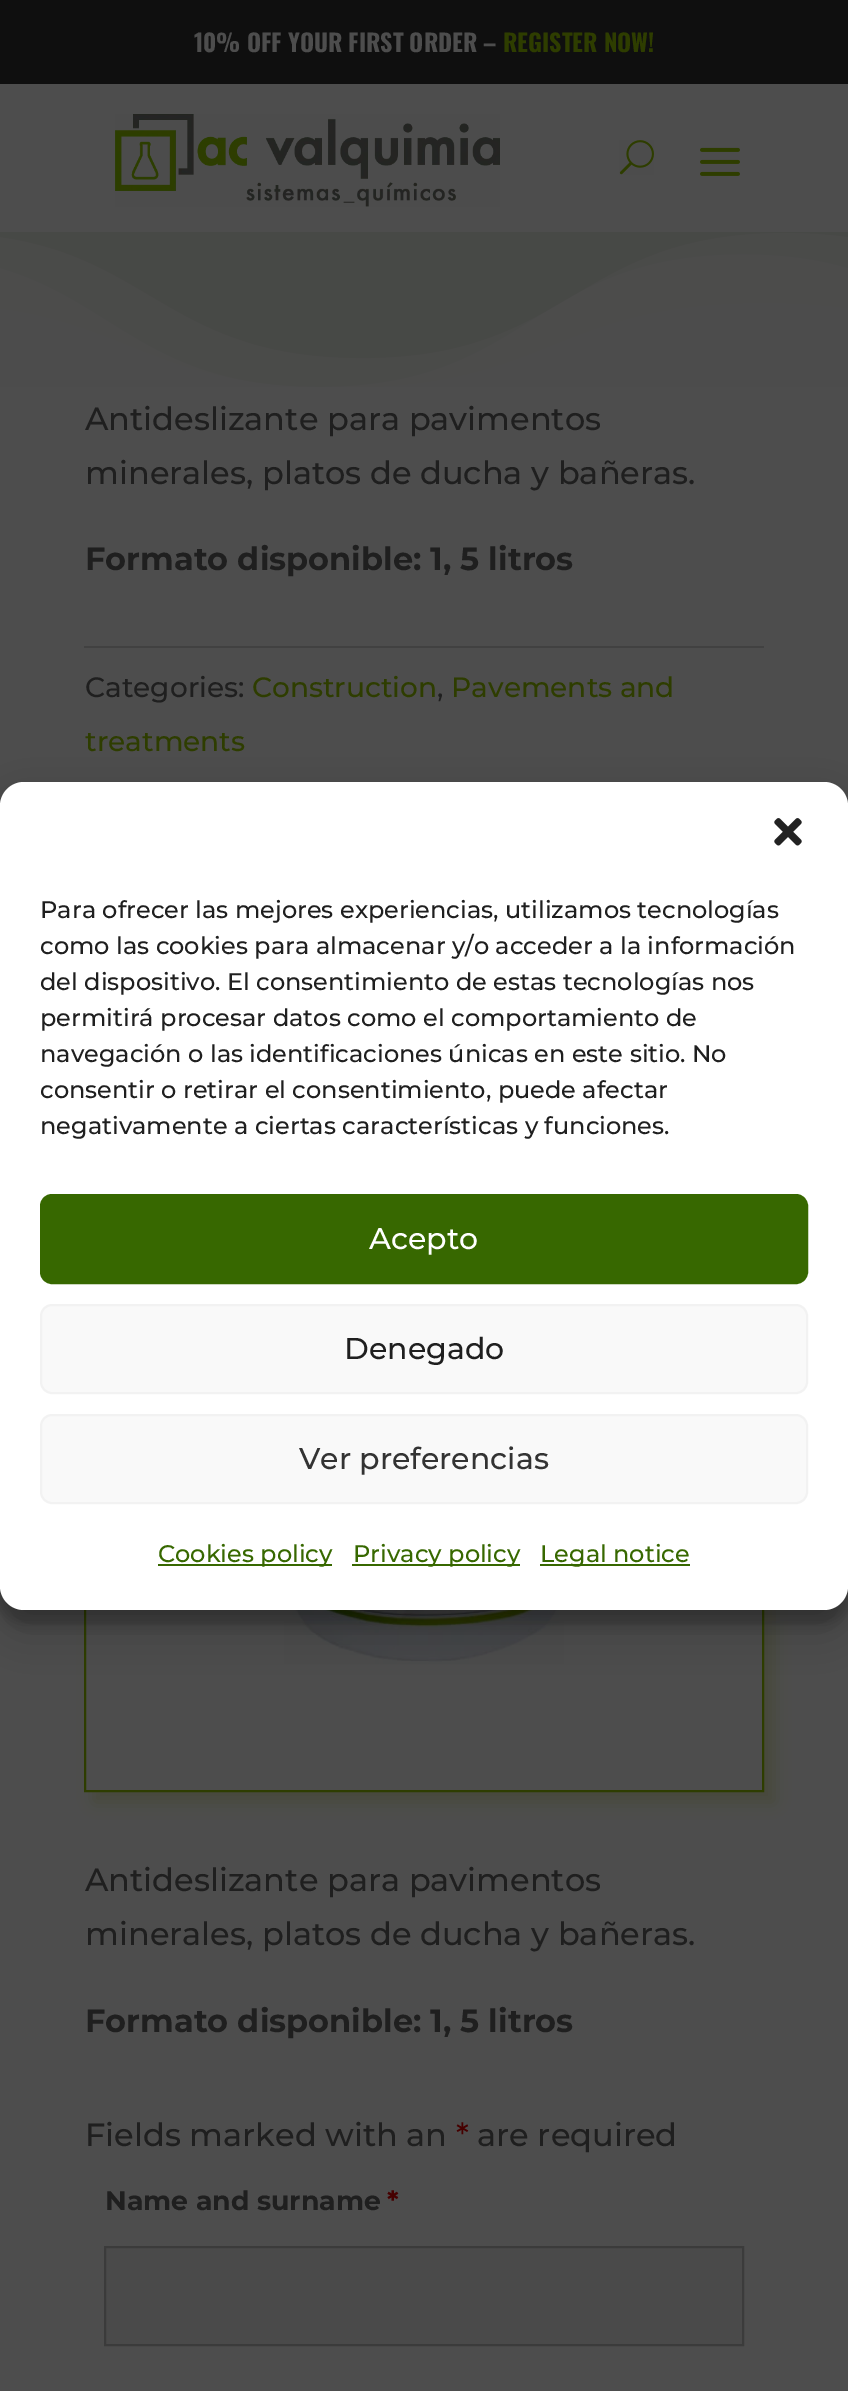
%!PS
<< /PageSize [848 2391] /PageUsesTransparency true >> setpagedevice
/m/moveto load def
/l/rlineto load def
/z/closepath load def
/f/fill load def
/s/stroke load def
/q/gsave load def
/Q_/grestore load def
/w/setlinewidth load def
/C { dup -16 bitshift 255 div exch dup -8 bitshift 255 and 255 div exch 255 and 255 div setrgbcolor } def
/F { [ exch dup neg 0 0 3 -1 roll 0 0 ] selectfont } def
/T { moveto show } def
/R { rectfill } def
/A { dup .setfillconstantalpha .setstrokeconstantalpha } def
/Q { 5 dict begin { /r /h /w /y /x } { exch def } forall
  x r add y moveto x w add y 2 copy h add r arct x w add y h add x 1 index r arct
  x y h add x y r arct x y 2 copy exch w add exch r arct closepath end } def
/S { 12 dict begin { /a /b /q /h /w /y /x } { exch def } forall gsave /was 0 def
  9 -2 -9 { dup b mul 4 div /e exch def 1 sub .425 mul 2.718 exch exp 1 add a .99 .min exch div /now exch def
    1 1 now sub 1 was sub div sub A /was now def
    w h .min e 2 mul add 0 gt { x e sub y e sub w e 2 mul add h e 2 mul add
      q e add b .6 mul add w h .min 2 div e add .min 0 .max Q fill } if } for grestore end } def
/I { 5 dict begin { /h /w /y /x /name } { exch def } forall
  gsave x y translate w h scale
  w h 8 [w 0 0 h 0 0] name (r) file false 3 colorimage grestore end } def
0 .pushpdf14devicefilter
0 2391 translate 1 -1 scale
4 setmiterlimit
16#4D4D4D C
0 0 848 2391 R
16#0F0F0F C
0 0 848 84 R
/Oswald-Bold 24 F
16#4D4D4D C
(10% OFF YOUR FIRST ORDER –) 194 52 T
16#2E3D00 C
(REGISTER NOW!) 503 52 T
(1.rgb) 115 114 385 93 I
(2.rgb) 619 140 35 35 I
(3.rgb) 700 147 40 29 I
(4.rgb) 0 232 848 155 I
/Montserrat-Medium 32 F
16#1F1F1F C
(Antideslizante para pavimentos) 85 430 T
(minerales, platos de ducha y bañeras.) 85 484 T
/Montserrat-Bold 32 F
(Formato disponible: 1, 5 litros) 85 570 T
16#414141 C
84 646 680 2 R
/Montserrat-Medium 28 F
16#1F1F1F C
(Categories:) 85 697 T
16#2E3D00 C
(Construction) 252 697 T
16#1F1F1F C
(,) 437 697 T
16#2E3D00 C
(Pavements and) 451 697 T
(treatments) 85 751 T
q
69 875 m 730 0 l 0 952 l -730 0 l z 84 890 m 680 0 l 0 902 l -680 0 l z eoclip newpath
94 900 680 902 0 8 .23 S
Q_
2 w
85 891 678 900 rectstroke
(5.rgb) 284 1610 280 54 I
/Montserrat-Medium 32 F
16#1F1F1F C
(Antideslizante para pavimentos) 85 1891 T
(minerales, platos de ducha y bañeras.) 85 1945 T
/Montserrat-Bold 32 F
(Formato disponible: 1, 5 litros) 85 2032 T
/Montserrat-Medium 32 F
(Fields marked with an) 85 2146 T
16#460000 C
(*) 456 2146 T
16#1F1F1F C
(are required) 477 2146 T
/Montserrat-Bold 26.75 F
(Name and surname) 105 2210 T
16#460000 C
(*) 387 2210 T
16#4A4A4A C
105 2247 m 638 0 l 0 98 l -638 0 l z q f Q_
16#3B3B3B C
s
16#000000 C
0 794 848 828 24 6 .23 S
0 802 848 828 24 20 .19 S
16#FFFFFF C
0 782 848 828 24 Q f
(6.rgb) 774 818 28 28 I
/Montserrat-Medium 24 F
16#1F1F1F C
(Para ofrecer las mejores experiencias, utilizamos tecnologías) 40 918 T
(como las cookies para almacenar y/o acceder a la información) 40 954 T
(del dispositivo. El consentimiento de estas tecnologías nos) 40 990 T
(permitirá procesar datos como el comportamiento de) 40 1026 T
(navegación o las identificaciones únicas en este sitio. No) 40 1062 T
(consentir o retirar el consentimiento, puede afectar) 40 1098 T
(negativamente a ciertas características y funciones.) 40 1134 T
16#376800 C
41 1195 766 88 11 Q q f Q_
s
/Montserrat-Medium 30 F
16#FFFFFF C
(Acepto) 369 1249 T
16#F9F9F9 C
41 1305 766 88 11 Q q f Q_
16#F2F2F2 C
s
16#1F1F1F C
(Denegado) 344 1359 T
16#F9F9F9 C
41 1415 766 88 11 Q q f Q_
16#F2F2F2 C
s
16#333333 C
(Ver preferencias) 299 1469 T
16#376800 C
158 1564 174 2 R
/Montserrat-Medium 24 F
(Cookies policy) 158 1562 T
352 1564 168 2 R
(Privacy policy) 353 1562 T
540 1564 150 2 R
(Legal notice) 540 1562 T
.poppdf14devicefilter showpage
